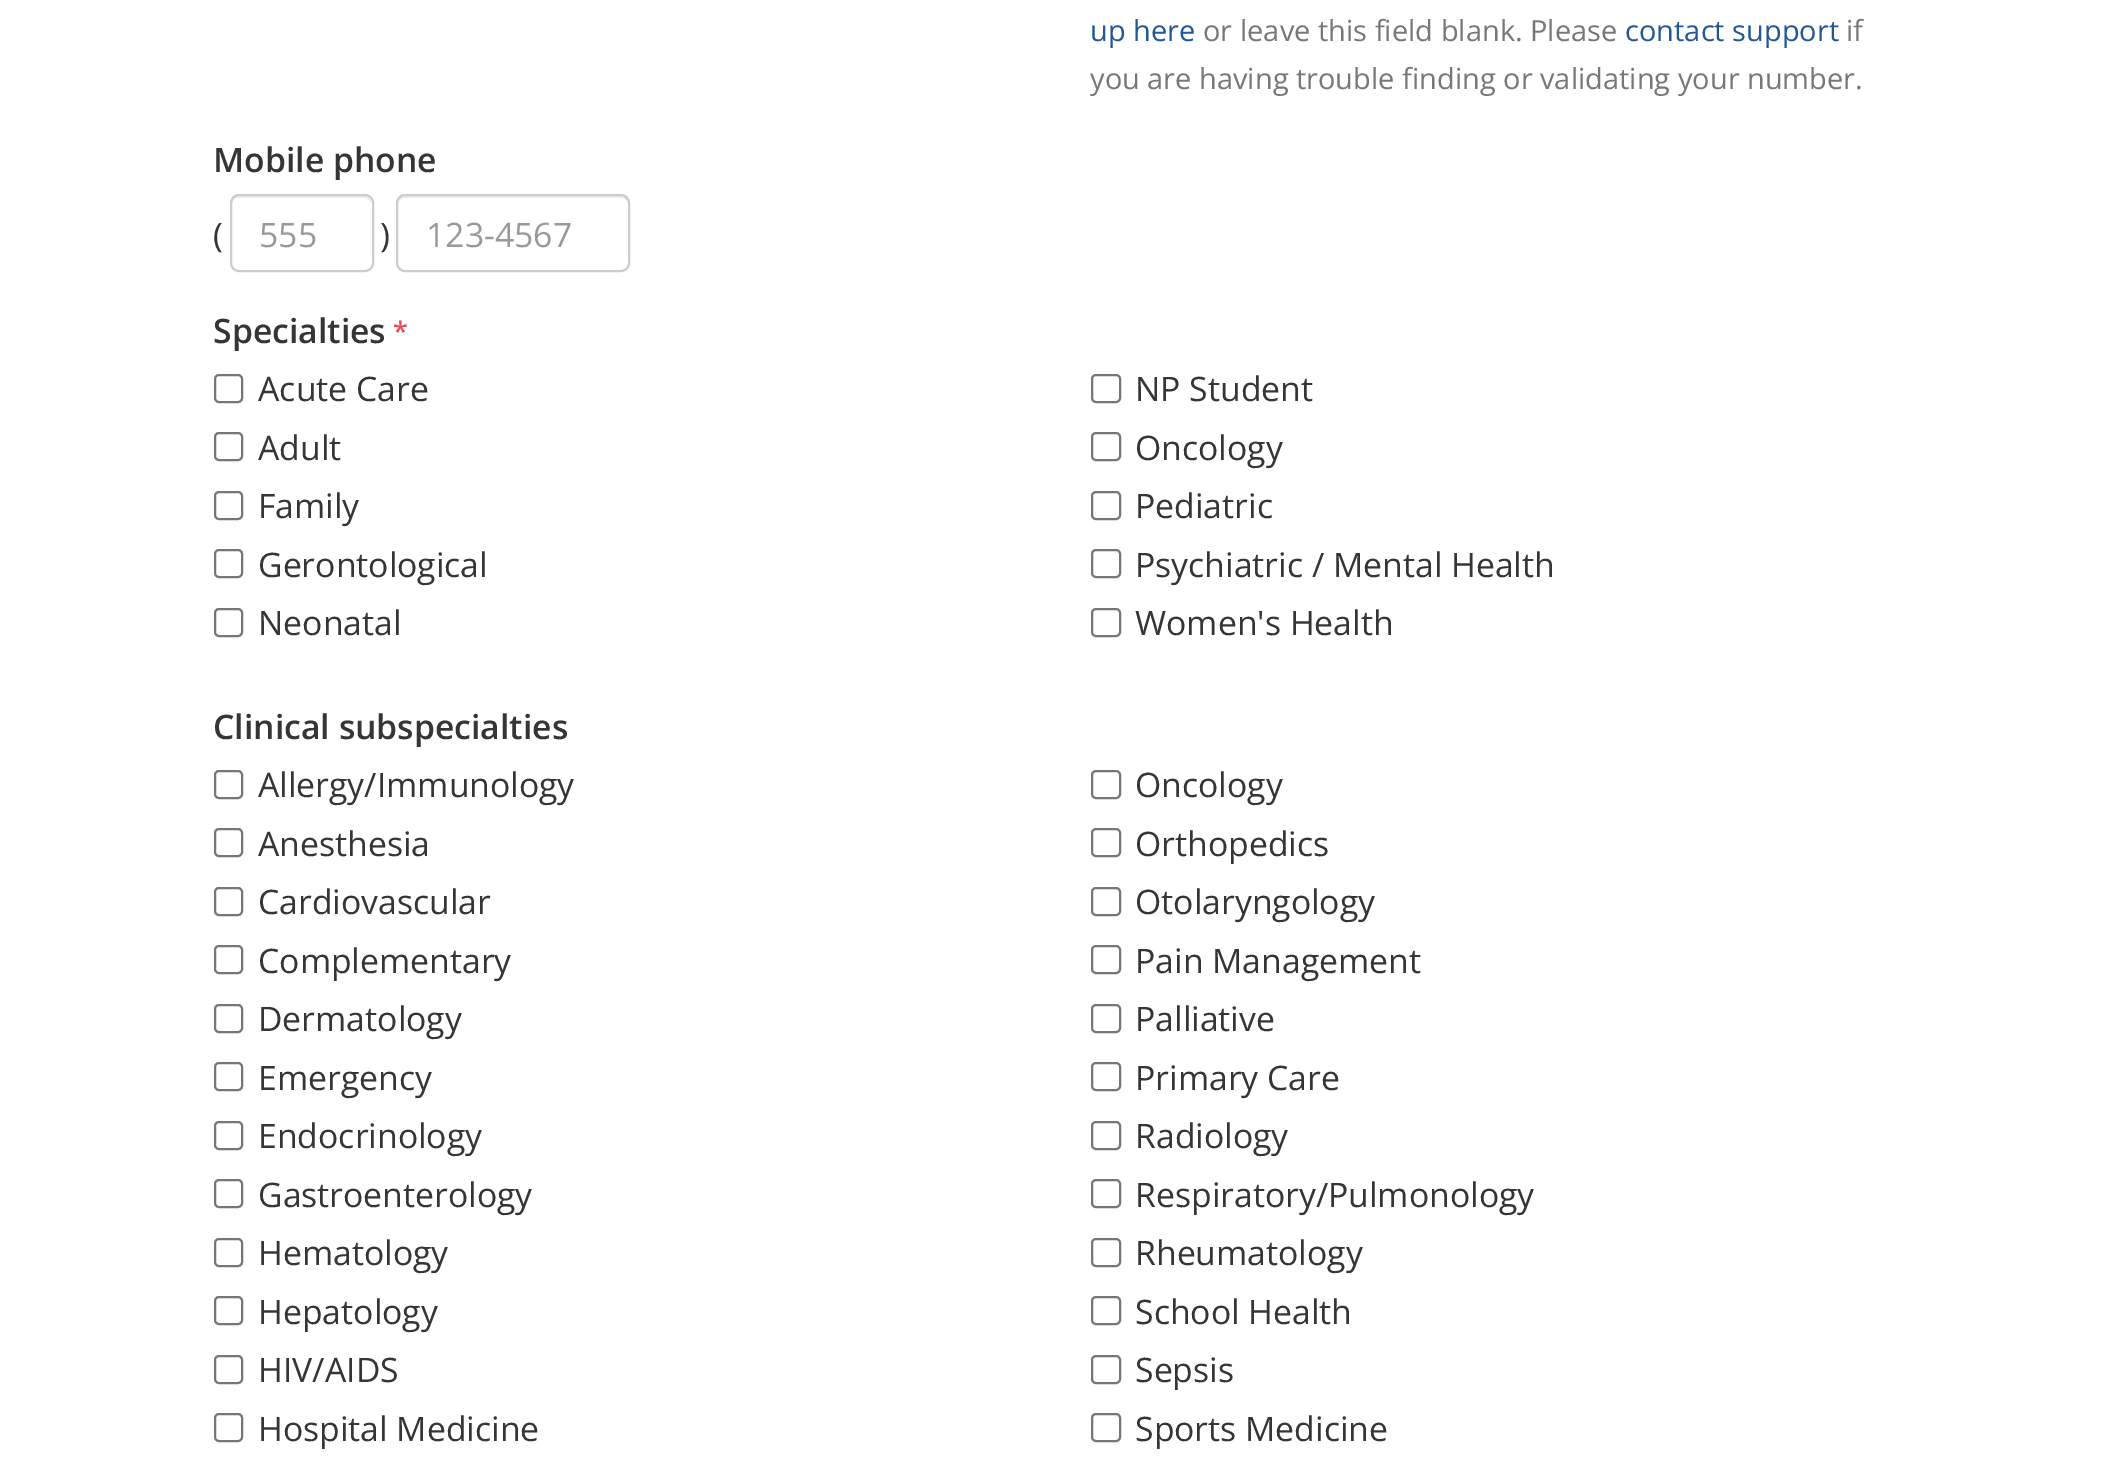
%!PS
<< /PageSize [2112 1459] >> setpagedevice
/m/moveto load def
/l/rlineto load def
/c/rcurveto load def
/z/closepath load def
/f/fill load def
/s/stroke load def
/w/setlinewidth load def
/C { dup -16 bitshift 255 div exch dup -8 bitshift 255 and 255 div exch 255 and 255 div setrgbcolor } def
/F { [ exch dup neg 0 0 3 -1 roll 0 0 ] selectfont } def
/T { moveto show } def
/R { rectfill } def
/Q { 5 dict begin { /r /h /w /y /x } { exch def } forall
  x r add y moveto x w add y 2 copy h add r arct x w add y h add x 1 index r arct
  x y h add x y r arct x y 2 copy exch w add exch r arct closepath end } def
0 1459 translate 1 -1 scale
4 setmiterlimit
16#FFFFFF C
0 0 2112 1459 R
/OpenSans-Regular 29 F
16#215793 C
(up here) 1090 41 T
16#777777 C
(or leave this field blank. Please) 1203 41 T
16#215793 C
(contact support) 1625 41 T
16#777777 C
(if) 1846 41 T
(you are having trouble finding or validating your number.) 1090 89 T
/OpenSans-SemiBold 33.75 F
16#343537 C
(Mobile phone) 213 172 T
/OpenSans-Regular 33.75 F
(\() 213 247 T
16#ECECEC C
238 198 m 126 0 l 4 0 7 3 7 7 c 0 -2 l 0 -4 -3 -7 -7 -7 c -125 0 l -4 0 -7 3 -7 7 c 0 2 l 0 -4 3 -7 6 -7 c z f
16#CCCCCC C
2 w
231 195 142 76 8 Q s
16#999999 C
(555) 259 247 T
16#343537 C
(\)) 380 247 T
16#ECECEC C
405 198 m 216 0 l 4 0 7 3 7 7 c 0 -2 l 0 -4 -3 -7 -7 -7 c -216 0 l -4 0 -7 3 -7 7 c 0 2 l 0 -4 3 -7 7 -7 c z f
16#CCCCCC C
397 195 232 76 8 Q s
16#999999 C
(123-4567) 426 247 T
/OpenSans-SemiBold 33.75 F
16#343537 C
(Specialties) 213 343 T
/OpenSans-SemiBold 27 F
16#E64E56 C
(*) 393 341 T
16#767676 C
215 375 27 27 4 Q s
/OpenSans-Regular 33.75 F
16#343537 C
(Acute Care) 258 401 T
16#767676 C
215 433 27 27 4 Q s
16#343537 C
(Adult) 258 460 T
16#767676 C
215 492 27 27 4 Q s
16#343537 C
(Family) 258 518 T
16#767676 C
215 550 27 27 4 Q s
16#343537 C
(Gerontological) 258 577 T
16#767676 C
215 609 27 27 4 Q s
16#343537 C
(Neonatal) 258 635 T
16#767676 C
1092 375 28 27 4 Q s
16#343537 C
(NP Student) 1135 401 T
16#767676 C
1092 433 28 27 4 Q s
16#343537 C
(Oncology) 1135 460 T
16#767676 C
1092 492 28 27 4 Q s
16#343537 C
(Pediatric) 1135 518 T
16#767676 C
1092 550 28 27 4 Q s
16#343537 C
(Psychiatric / Mental Health) 1135 577 T
16#767676 C
1092 609 28 27 4 Q s
16#343537 C
(Women's Health) 1135 635 T
/OpenSans-SemiBold 33.75 F
(Clinical subspecialties) 213 739 T
16#767676 C
215 771 27 27 4 Q s
/OpenSans-Regular 33.75 F
16#343537 C
(Allergy/Immunology) 258 797 T
16#767676 C
215 829 27 27 4 Q s
16#343537 C
(Anesthesia) 258 856 T
16#767676 C
215 888 27 27 4 Q s
16#343537 C
(Cardiovascular) 258 914 T
16#767676 C
215 946 27 27 4 Q s
16#343537 C
(Complementary) 258 973 T
16#767676 C
215 1005 27 27 4 Q s
16#343537 C
(Dermatology) 258 1031 T
16#767676 C
215 1063 27 27 4 Q s
16#343537 C
(Emergency) 258 1090 T
16#767676 C
215 1122 27 27 4 Q s
16#343537 C
(Endocrinology) 258 1148 T
16#767676 C
215 1180 27 27 4 Q s
16#343537 C
(Gastroenterology) 258 1207 T
16#767676 C
215 1239 27 27 4 Q s
16#343537 C
(Hematology) 258 1265 T
16#767676 C
215 1297 27 27 4 Q s
16#343537 C
(Hepatology) 258 1324 T
16#767676 C
215 1356 27 27 4 Q s
16#343537 C
(HIV/AIDS) 258 1382 T
16#767676 C
215 1414 27 27 4 Q s
16#343537 C
(Hospital Medicine) 258 1441 T
16#767676 C
1092 771 28 27 4 Q s
16#343537 C
(Oncology) 1135 797 T
16#767676 C
1092 829 28 27 4 Q s
16#343537 C
(Orthopedics) 1135 856 T
16#767676 C
1092 888 28 27 4 Q s
16#343537 C
(Otolaryngology) 1135 914 T
16#767676 C
1092 946 28 27 4 Q s
16#343537 C
(Pain Management) 1135 973 T
16#767676 C
1092 1005 28 27 4 Q s
16#343537 C
(Palliative) 1135 1031 T
16#767676 C
1092 1063 28 27 4 Q s
16#343537 C
(Primary Care) 1135 1090 T
16#767676 C
1092 1122 28 27 4 Q s
16#343537 C
(Radiology) 1135 1148 T
16#767676 C
1092 1180 28 27 4 Q s
16#343537 C
(Respiratory/Pulmonology) 1135 1207 T
16#767676 C
1092 1239 28 27 4 Q s
16#343537 C
(Rheumatology) 1135 1265 T
16#767676 C
1092 1297 28 27 4 Q s
16#343537 C
(School Health) 1135 1324 T
16#767676 C
1092 1356 28 27 4 Q s
16#343537 C
(Sepsis) 1135 1382 T
16#767676 C
1092 1414 28 27 4 Q s
16#343537 C
(Sports Medicine) 1135 1441 T
showpage
